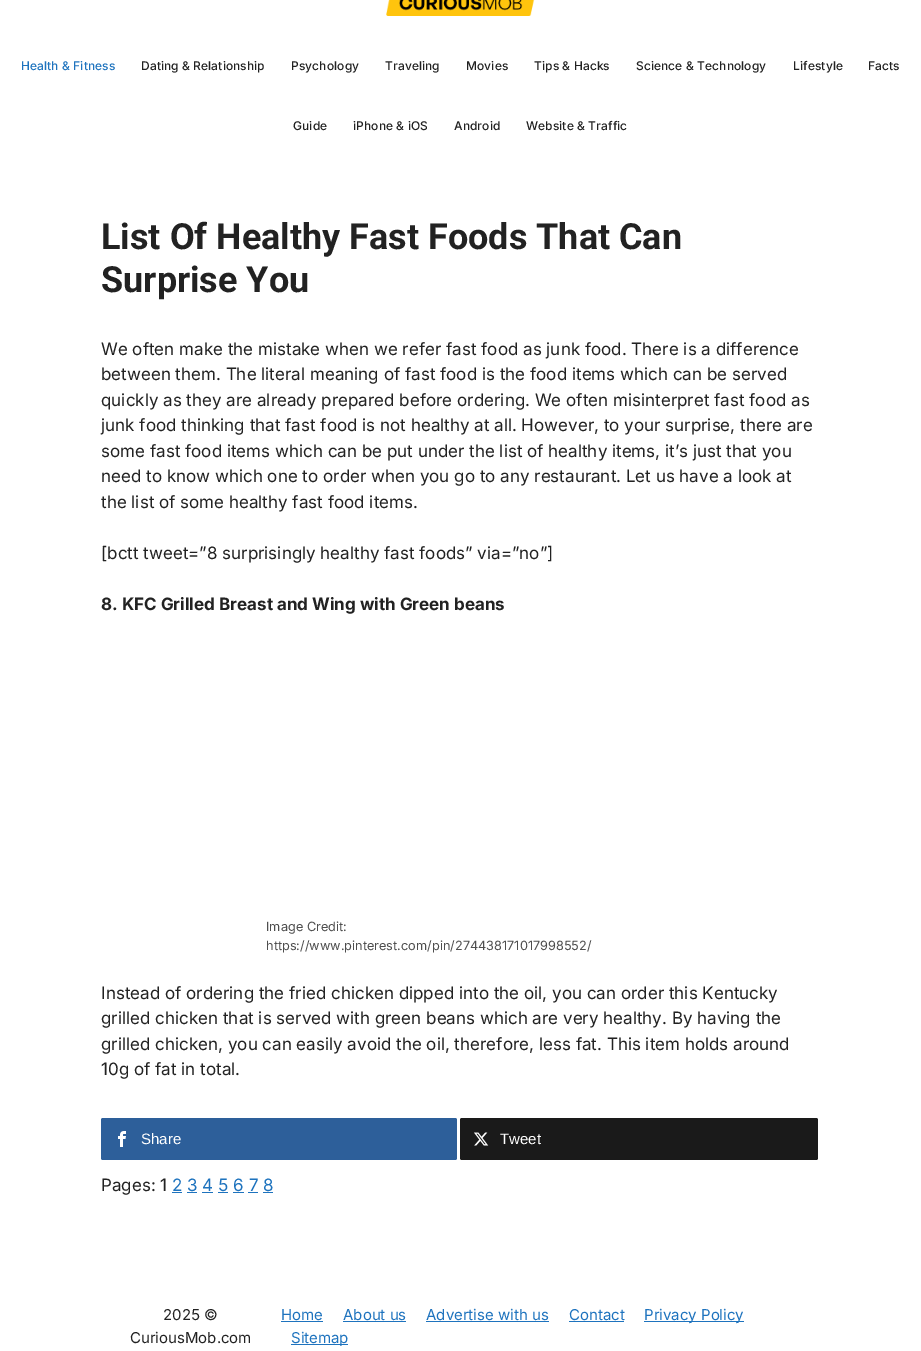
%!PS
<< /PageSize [921 1351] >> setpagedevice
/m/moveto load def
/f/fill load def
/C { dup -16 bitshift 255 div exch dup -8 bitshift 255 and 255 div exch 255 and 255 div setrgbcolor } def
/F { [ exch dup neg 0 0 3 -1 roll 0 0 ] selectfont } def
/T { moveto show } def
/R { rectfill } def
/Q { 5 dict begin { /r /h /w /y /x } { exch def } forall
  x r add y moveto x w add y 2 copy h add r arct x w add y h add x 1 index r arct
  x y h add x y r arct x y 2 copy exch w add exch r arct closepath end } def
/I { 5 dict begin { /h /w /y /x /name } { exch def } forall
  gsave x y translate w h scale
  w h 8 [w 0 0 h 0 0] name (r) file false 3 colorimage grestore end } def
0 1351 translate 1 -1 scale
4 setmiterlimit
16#FFFFFF C
0 0 921 1351 R
(1.rgb) 386 0 149 16 I
/Inter-Medium 12 F
16#1E73BE C
21 70 m .1 0 (Health & Fitness) ashow
16#222222 C
141 70 m .1 0 (Dating & Relationship) ashow
291 70 m .1 0 (Psychology) ashow
385 70 m .1 0 (Traveling) ashow
466 70 m .1 0 (Movies) ashow
534 70 m .1 0 (Tips & Hacks) ashow
636 70 m .1 0 (Science & Technology) ashow
793 70 m .1 0 (Lifestyle) ashow
868 70 m .1 0 (Facts) ashow
293 130 m .1 0 (Guide) ashow
353 130 m .1 0 (iPhone & iOS) ashow
454 130 m .1 0 (Android) ashow
526 130 m .1 0 (Website & Traffic) ashow
/Roboto-Bold 36 F
(List Of Healthy Fast Foods That Can) 101 249 T
(Surprise You) 101 292 T
/Inter-Regular 17 F
(We often make the mistake when we refer fast food as junk food. There is a difference) 101 355 T
(between them. The literal meaning of fast food is the food items which can be served) 101 380 T
(quickly as they are already prepared before ordering. We often misinterpret fast food as) 101 406 T
(junk food thinking that fast food is not healthy at all. However, to your surprise, there are) 101 431 T
(some fast food items which can be put under the list of healthy items, it’s just that you) 101 457 T
(need to know which one to order when you go to any restaurant. Let us have a look at) 101 482 T
(the list of some healthy fast food items.) 101 508 T
([bctt tweet=”8 surprisingly healthy fast foods” via=”no”]) 101 559 T
/Inter-Bold 17 F
(8. KFC Grilled Breast and Wing with Green beans) 101 610 T
/Inter-Regular 12.75 F
16#4E4E4E C
(Image Credit:) 266 931 T
(https://www.pinterest.com/pin/274438171017998552/) 266 950 T
/Inter-Regular 17 F
16#222222 C
(Instead of ordering the fried chicken dipped into the oil, you can order this Kentucky) 101 999 T
(grilled chicken that is served with green beans which are very healthy. By having the) 101 1024 T
(grilled chicken, you can easily avoid the oil, therefore, less fat. This item holds around) 101 1050 T
(10g of fat in total.) 101 1075 T
16#2D5F9A C
101 1118 356 42 2 Q f
(2.rgb) 118 1131 8 16 I
/LiberationSans-Regular 15 F
16#FFFFFF C
(Share) 141 1144 T
16#1A1A1A C
460 1118 358 42 2 Q f
(3.rgb) 474 1132 15 14 I
16#FFFFFF C
(Tweet) 500 1144 T
/Inter-Regular 17 F
16#222222 C
(Pages: 1) 101 1191 T
16#1E73BE C
(2 3 4 5 6 7 8) 172 1191 T
172 1192 10 1 R
187 1192 10 1 R
202 1192 11 1 R
218 1192 10 1 R
233 1192 11 1 R
248 1192 10 1 R
263 1192 10 1 R
/Inter-Regular 15 F
16#222222 C
(2025 ©) 163 1320 T
(CuriousMob.com) 130 1343 T
16#1E73BE C
(Home) 281 1320 T
281 1321 42 1 R
(About us) 343 1320 T
343 1321 63 1 R
(Advertise with us) 426 1320 T
426 1321 123 1 R
(Contact) 569 1320 T
569 1321 55 1 R
644 1321 100 1 R
(Privacy Policy) 644 1320 T
291 1344 57 1 R
(Sitemap) 291 1343 T
showpage
